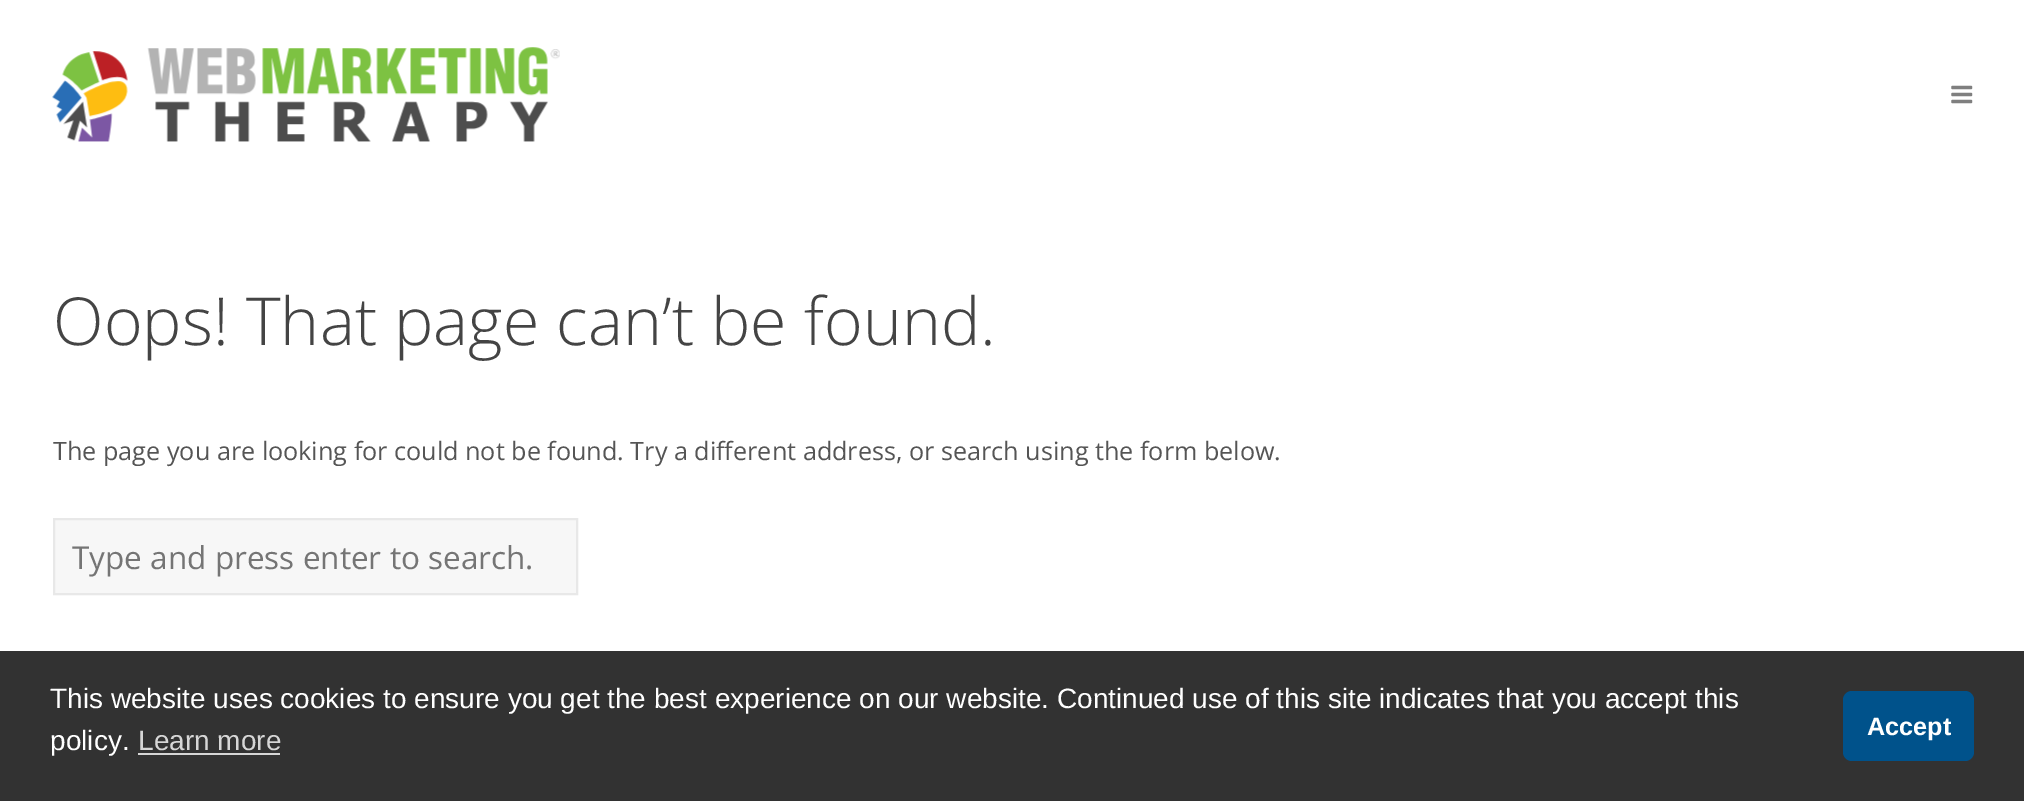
%!PS
<< /PageSize [2024 801] >> setpagedevice
/m/moveto load def
/l/rlineto load def
/z/closepath load def
/f/fill load def
/s/stroke load def
/q/gsave load def
/Q_/grestore load def
/w/setlinewidth load def
/C { dup -16 bitshift 255 div exch dup -8 bitshift 255 and 255 div exch 255 and 255 div setrgbcolor } def
/F { [ exch dup neg 0 0 3 -1 roll 0 0 ] selectfont } def
/T { moveto show } def
/R { rectfill } def
/Q { 5 dict begin { /r /h /w /y /x } { exch def } forall
  x r add y moveto x w add y 2 copy h add r arct x w add y h add x 1 index r arct
  x y h add x y r arct x y 2 copy exch w add exch r arct closepath end } def
/I { 5 dict begin { /h /w /y /x /name } { exch def } forall
  gsave x y translate w h scale
  w h 8 [w 0 0 h 0 0] name (r) file false 3 colorimage grestore end } def
0 801 translate 1 -1 scale
4 setmiterlimit
16#FFFFFF C
0 0 2024 801 R
(1.rgb) 52 47 508 95 I
(2.rgb) 1951 85 22 19 I
/OpenSans-Light 66.2 F
16#444444 C
(Oops! That page can’t be found.) 53 345 T
/OpenSans-Regular 25.2 F
16#555555 C
(The page you are looking for could not be found. Try a different address, or search using the form below.) 53 460 T
16#F7F7F7 C
54 519 m 523 0 l 0 75 l -523 0 l z q f Q_
16#E8E8E8 C
2 w
s
/OpenSans-Regular 31.5 F
16#757575 C
(Type and press enter to search.) 72 569 T
16#323232 C
0 651 2024 150 R
/LiberationSans-Regular 28 F
16#FFFFFF C
(This website uses cookies to ensure you get the best experience on our website. Continued use of this site indicates that you accept this) 50 708 T
(policy.) 50 750 T
16#D6D6D6 C
(Learn more) 138 750 T
138 753 142 2 R
16#00528B C
1843 691 131 70 9 Q f
/LiberationSans-Bold 25.2 F
16#FFFFFF C
(Accept) 1867 735 T
showpage
